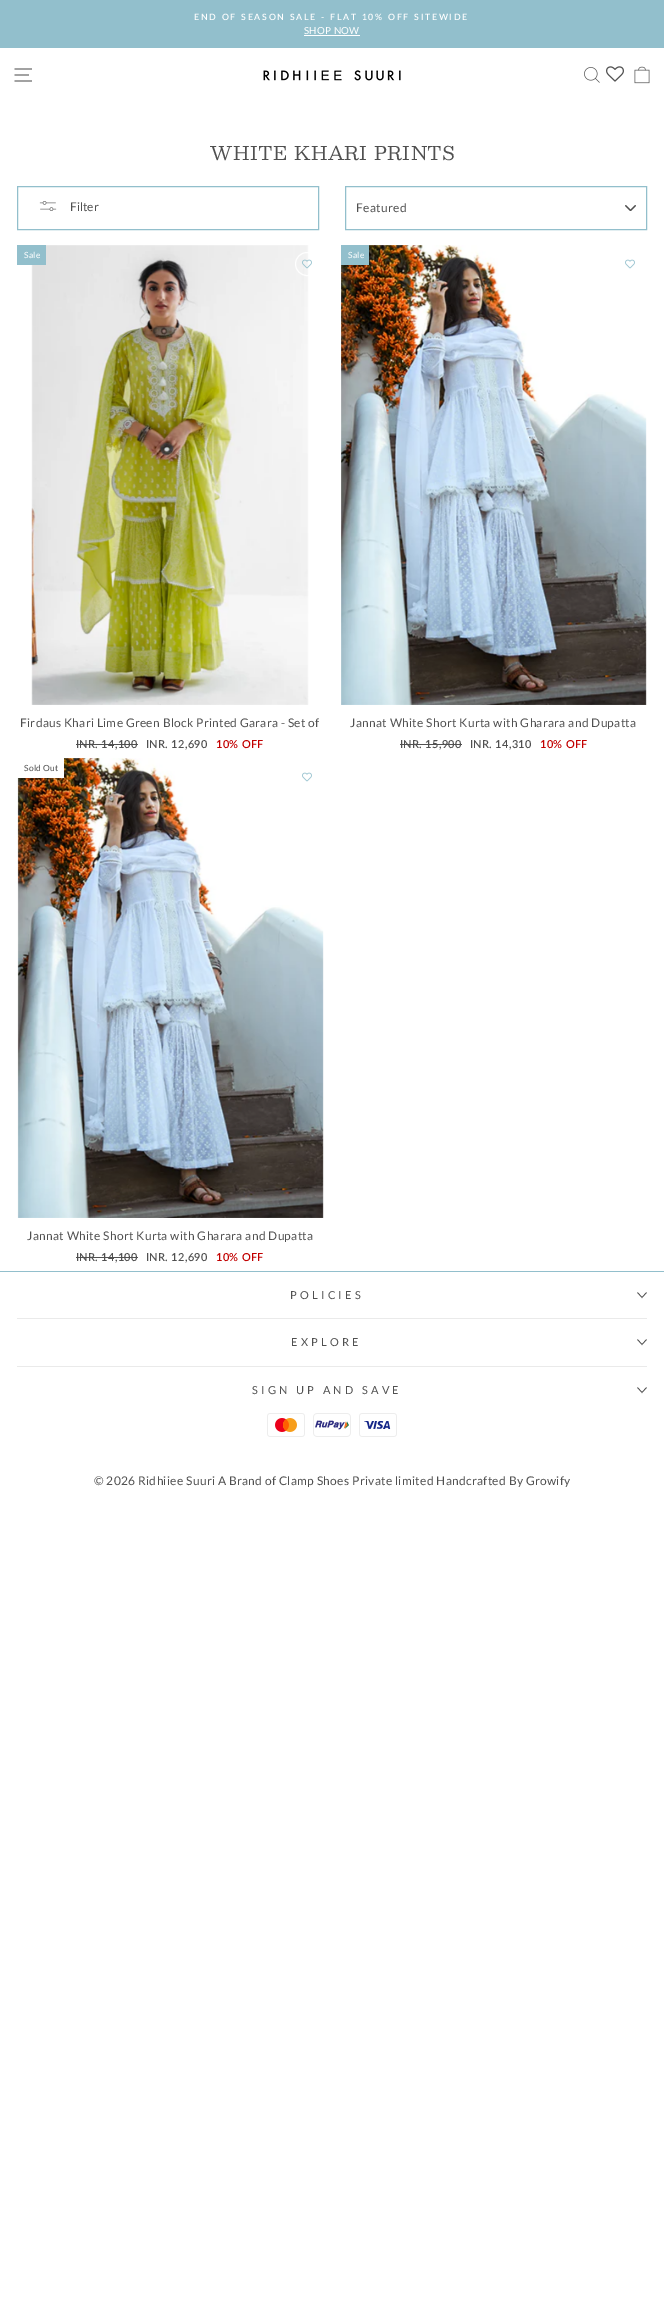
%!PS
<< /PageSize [664 2314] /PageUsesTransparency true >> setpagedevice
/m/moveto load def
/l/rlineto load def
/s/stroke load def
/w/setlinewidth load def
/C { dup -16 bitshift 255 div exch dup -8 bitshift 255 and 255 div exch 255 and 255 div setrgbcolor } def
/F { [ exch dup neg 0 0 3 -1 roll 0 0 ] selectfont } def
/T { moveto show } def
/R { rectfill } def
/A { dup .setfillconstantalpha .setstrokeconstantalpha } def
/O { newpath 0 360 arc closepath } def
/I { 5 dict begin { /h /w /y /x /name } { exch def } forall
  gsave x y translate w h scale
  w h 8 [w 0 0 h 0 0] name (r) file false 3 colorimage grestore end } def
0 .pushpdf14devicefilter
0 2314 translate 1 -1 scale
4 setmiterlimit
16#FFFFFF C
0 0 664 2314 R
16#92BFCC C
0 0 664 48 R
/Lato-SemiBold 8.75 F
16#FFFFFF C
194 20 m 1.75 0 (END OF SEASON SALE - FLAT 10% OFF SITEWIDE) ashow
/Lato-Regular 9.75 F
304 34 m .3 0 (SHOP NOW) ashow
304 35 56 1 R
16#505050 C
.7 w
14.5 69 m 17.5 0 l 14.5 75 m 14.5 0 l 14.5 81 m 17.5 0 l s
(1.rgb) 263 70 138 11 I
(2.rgb) 584 67 16 16 I
(3.rgb) 606 66 18 16 I
(4.rgb) 634 66 16 18 I
/Besley-Regular 18.75 F
210 160 m .5 0 (WHITE KHARI PRINTS) ashow
16#92BFCC C
1 w
17.5 186.5 301 43 rectstroke
(5.rgb) 39 201 18 10 I
/Lato-Regular 12 F
16#505050 C
(Filter) 70 211 T
(6.rgb) 625 205 11 6 I
16#92BFCC C
345.5 186.5 301 43 rectstroke
16#505050 C
356 212 m .3 0 (Featured) ashow
(7.rgb) 31 245 278 460 I
16#92BFCC C
17 245 29 20 R
/Lato-Regular 8.5 F
16#FFFFFF C
24 258 m .3 0 (Sale) ashow
0.9 A
307 264 11.5 O s
1 A
(8.rgb) 302 259 10 10 I
/Lato-Regular 11.95 F
16#505050 C
20 727 m .3 0 (Firdaus Khari Lime Green Block Printed Garara - Set of) ashow
/Lato-SemiBold 11 F
76 748 m .3 0 (INR. 14,100) ashow
76 744 62 1 R
146 748 m .3 0 (INR. 12,690) ashow
16#C20000 C
216 748 m .3 0 (10% OFF) ashow
(9.rgb) 341 245 306 460 I
16#92BFCC C
341 245 28 20 R
/Lato-Regular 8.5 F
16#FFFFFF C
348 258 m .3 0 (Sale) ashow
(10.rgb) 625 259 10 10 I
/Lato-Regular 11.95 F
16#505050 C
350 727 m .3 0 (Jannat White Short Kurta with Gharara and Dupatta) ashow
/Lato-SemiBold 11 F
400 748 m .3 0 (INR. 15,900) ashow
400 744 62 1 R
470 748 m .3 0 (INR. 14,310) ashow
16#C20000 C
540 748 m .3 0 (10% OFF) ashow
(11.rgb) 17 758 307 460 I
16#FFFFFF C
17 758 47 20 R
/Lato-Regular 8.5 F
16#505050 C
24 771 m .3 0 (Sold Out) ashow
(10.rgb) 302 772 10 10 I
/Lato-Regular 11.95 F
27 1240 m .3 0 (Jannat White Short Kurta with Gharara and Dupatta) ashow
/Lato-SemiBold 11 F
76 1261 m .3 0 (INR. 14,100) ashow
76 1257 62 1 R
146 1261 m .3 0 (INR. 12,690) ashow
16#C20000 C
216 1261 m .3 0 (10% OFF) ashow
16#92BFCC C
0 1271 664 1 R
/Lato-Regular 11 F
16#505050 C
290 1299 m 3.25 0 (POLICIES) ashow
.7 w
637.5 1292.5 m 4.5 5 l 4.5 -5 l s
16#EAEAEA C
17 1318 630 1 R
16#505050 C
291 1346 m 3.25 0 (EXPLORE) ashow
637.5 1339.5 m 4.5 5 l 4.5 -5 l s
16#EAEAEA C
17 1366 630 1 R
16#505050 C
252 1394 m 3.25 0 (SIGN UP AND SAVE) ashow
637.5 1387.5 m 4.5 5 l 4.5 -5 l s
(12.rgb) 267 1413 38 24 I
(13.rgb) 313 1413 38 24 I
(14.rgb) 359 1413 38 24 I
/Lato-Regular 12 F
94 1485 m .3 0 (© 2026 Ridhiiee Suuri A Brand of Clamp Shoes Private limited Handcrafted By Growify) ashow
.poppdf14devicefilter showpage
